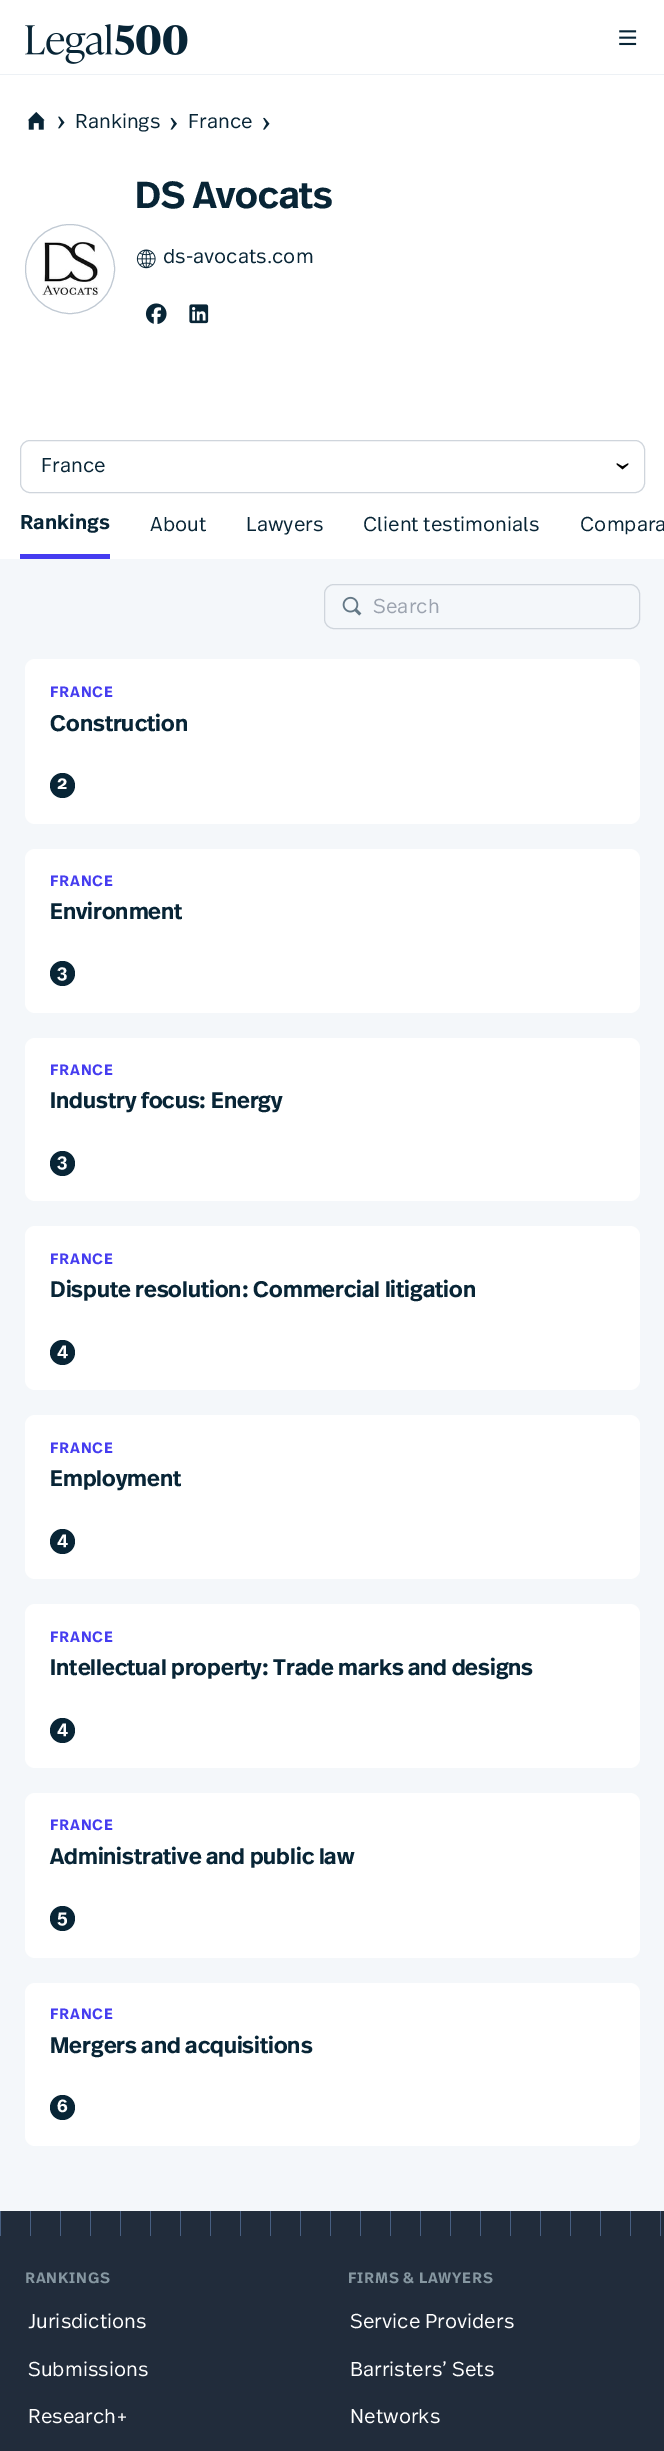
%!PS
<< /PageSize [664 2451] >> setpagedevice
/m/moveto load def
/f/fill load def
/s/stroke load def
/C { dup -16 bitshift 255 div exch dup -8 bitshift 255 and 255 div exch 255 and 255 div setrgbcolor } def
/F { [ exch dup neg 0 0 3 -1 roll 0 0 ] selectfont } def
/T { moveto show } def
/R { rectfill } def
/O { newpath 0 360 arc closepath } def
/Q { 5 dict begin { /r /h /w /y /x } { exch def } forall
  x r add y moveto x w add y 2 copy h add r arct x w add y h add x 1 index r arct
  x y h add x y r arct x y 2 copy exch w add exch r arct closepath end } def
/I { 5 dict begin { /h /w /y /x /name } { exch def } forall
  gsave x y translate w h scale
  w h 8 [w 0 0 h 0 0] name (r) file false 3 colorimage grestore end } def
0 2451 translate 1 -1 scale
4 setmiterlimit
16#FFFFFF C
0 0 664 2451 R
16#EDF1F5 C
0 74 664 1 R
(1.rgb) 25 24 163 40 I
(2.rgb) 619 30 18 16 I
16#F4F7FA C
0 559 664 1652 R
(3.rgb) 27 112 18 18 I
(4.rgb) 58 116 7 13 I
/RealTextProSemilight-Light 20 F
16#082536 C
(Rankings) 75 128 T
(5.rgb) 170 117 7 13 I
(France) 188 128 T
(6.rgb) 263 117 7 13 I
16#C0C9D3 C
70 269 44.5 O s
(7.rgb) 42 241 57 57 I
/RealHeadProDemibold-SemiBold 37.5 F
16#082536 C
(DS Avocats) 135 208 T
(8.rgb) 136 249 20 20 I
/RealTextProSemilight-Light 20 F
(ds-avocats.com) 163 263 T
(9.rgb) 145 303 22 21 I
(10.rgb) 189 304 20 20 I
16#CFD5DC C
20.5 440.5 624 52 9.5 Q s
16#082536 C
(France) 41 472 T
(11.rgb) 616 463 13 7 I
/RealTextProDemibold-SemiBold 20 F
(Rankings) 20 529 T
16#453CF0 C
20 554 90 5 R
/RealTextProSemilight-Light 20 F
16#082536 C
(About) 150 531 T
(Lawyers) 246 531 T
(Client testimonials) 363 531 T
(Compara) 580 531 T
16#CFD5DC C
324.5 584.5 315 44 9.5 Q s
(12.rgb) 342 596 20 20 I
16#9CA3AF C
(Search) 373 613 T
16#FFFFFF C
25 659 615 165 10 Q f
/RealTextProDemibold-SemiBold 15 F
16#453CF0 C
50 697 m .75 0 (FRANCE) ashow
/RealHeadProDemibold-SemiBold 22.5 F
16#082536 C
(Construction) 50 731 T
62.5 785.5 12.5 O f
/RealTextProDemibold-SemiBold 18 F
16#FFFFFF C
(2) 57 789 T
25 849 615 164 10 Q f
/RealTextProDemibold-SemiBold 15 F
16#453CF0 C
50 886 m .75 0 (FRANCE) ashow
/RealHeadProDemibold-SemiBold 22.5 F
16#082536 C
(Environment) 50 919 T
62.5 973.5 12.5 O f
/RealTextProDemibold-SemiBold 18 F
16#FFFFFF C
(3) 57 978 T
25 1038 615 163 10 Q f
/RealTextProDemibold-SemiBold 15 F
16#453CF0 C
50 1075 m .75 0 (FRANCE) ashow
/RealHeadProDemibold-SemiBold 22.5 F
16#082536 C
(Industry focus: Energy) 50 1108 T
62.5 1163.5 12.5 O f
/RealTextProDemibold-SemiBold 18 F
16#FFFFFF C
(3) 57 1167 T
25 1226 615 164 10 Q f
/RealTextProDemibold-SemiBold 15 F
16#453CF0 C
50 1264 m .75 0 (FRANCE) ashow
/RealHeadProDemibold-SemiBold 22.5 F
16#082536 C
(Dispute resolution: Commercial litigation) 50 1297 T
62.5 1352.5 12.5 O f
/RealTextProDemibold-SemiBold 18 F
16#FFFFFF C
(4) 57 1356 T
25 1415 615 164 10 Q f
/RealTextProDemibold-SemiBold 15 F
16#453CF0 C
50 1453 m .75 0 (FRANCE) ashow
/RealHeadProDemibold-SemiBold 22.5 F
16#082536 C
(Employment) 50 1486 T
62.5 1541.5 12.5 O f
/RealTextProDemibold-SemiBold 18 F
16#FFFFFF C
(4) 57 1545 T
25 1604 615 164 10 Q f
/RealTextProDemibold-SemiBold 15 F
16#453CF0 C
50 1642 m .75 0 (FRANCE) ashow
/RealHeadProDemibold-SemiBold 22.5 F
16#082536 C
(Intellectual property: Trade marks and designs) 50 1675 T
62.5 1730.5 12.5 O f
/RealTextProDemibold-SemiBold 18 F
16#FFFFFF C
(4) 57 1734 T
25 1793 615 165 10 Q f
/RealTextProDemibold-SemiBold 15 F
16#453CF0 C
50 1830 m .75 0 (FRANCE) ashow
/RealHeadProDemibold-SemiBold 22.5 F
16#082536 C
(Administrative and public law) 50 1864 T
62.5 1918.5 12.5 O f
/RealTextProDemibold-SemiBold 18 F
16#FFFFFF C
(5) 57 1923 T
25 1983 615 163 10 Q f
/RealTextProDemibold-SemiBold 15 F
16#453CF0 C
50 2019 m .75 0 (FRANCE) ashow
/RealHeadProDemibold-SemiBold 22.5 F
16#082536 C
(Mergers and acquisitions) 50 2053 T
62.5 2107.5 12.5 O f
/RealTextProDemibold-SemiBold 18 F
16#FFFFFF C
(6) 57 2112 T
16#212C3B C
0 2211 664 240 R
(13.rgb) 0 2211 661 25 I
/RealTextProDemibold-SemiBold 15 F
16#8697A1 C
25 2283 m .75 0 (RANKINGS) ashow
/RealTextProSemilight-Light 20 F
16#FFFFFF C
(Jurisdictions) 28 2328 T
(Submissions) 28 2376 T
(Research+) 28 2423 T
/RealTextProDemibold-SemiBold 15 F
16#8697A1 C
348 2283 m .75 0 (FIRMS & LAWYERS) ashow
/RealTextProSemilight-Light 20 F
16#FFFFFF C
(Service Providers) 350 2328 T
(Barristers’ Sets) 350 2376 T
(Networks) 350 2423 T
showpage
